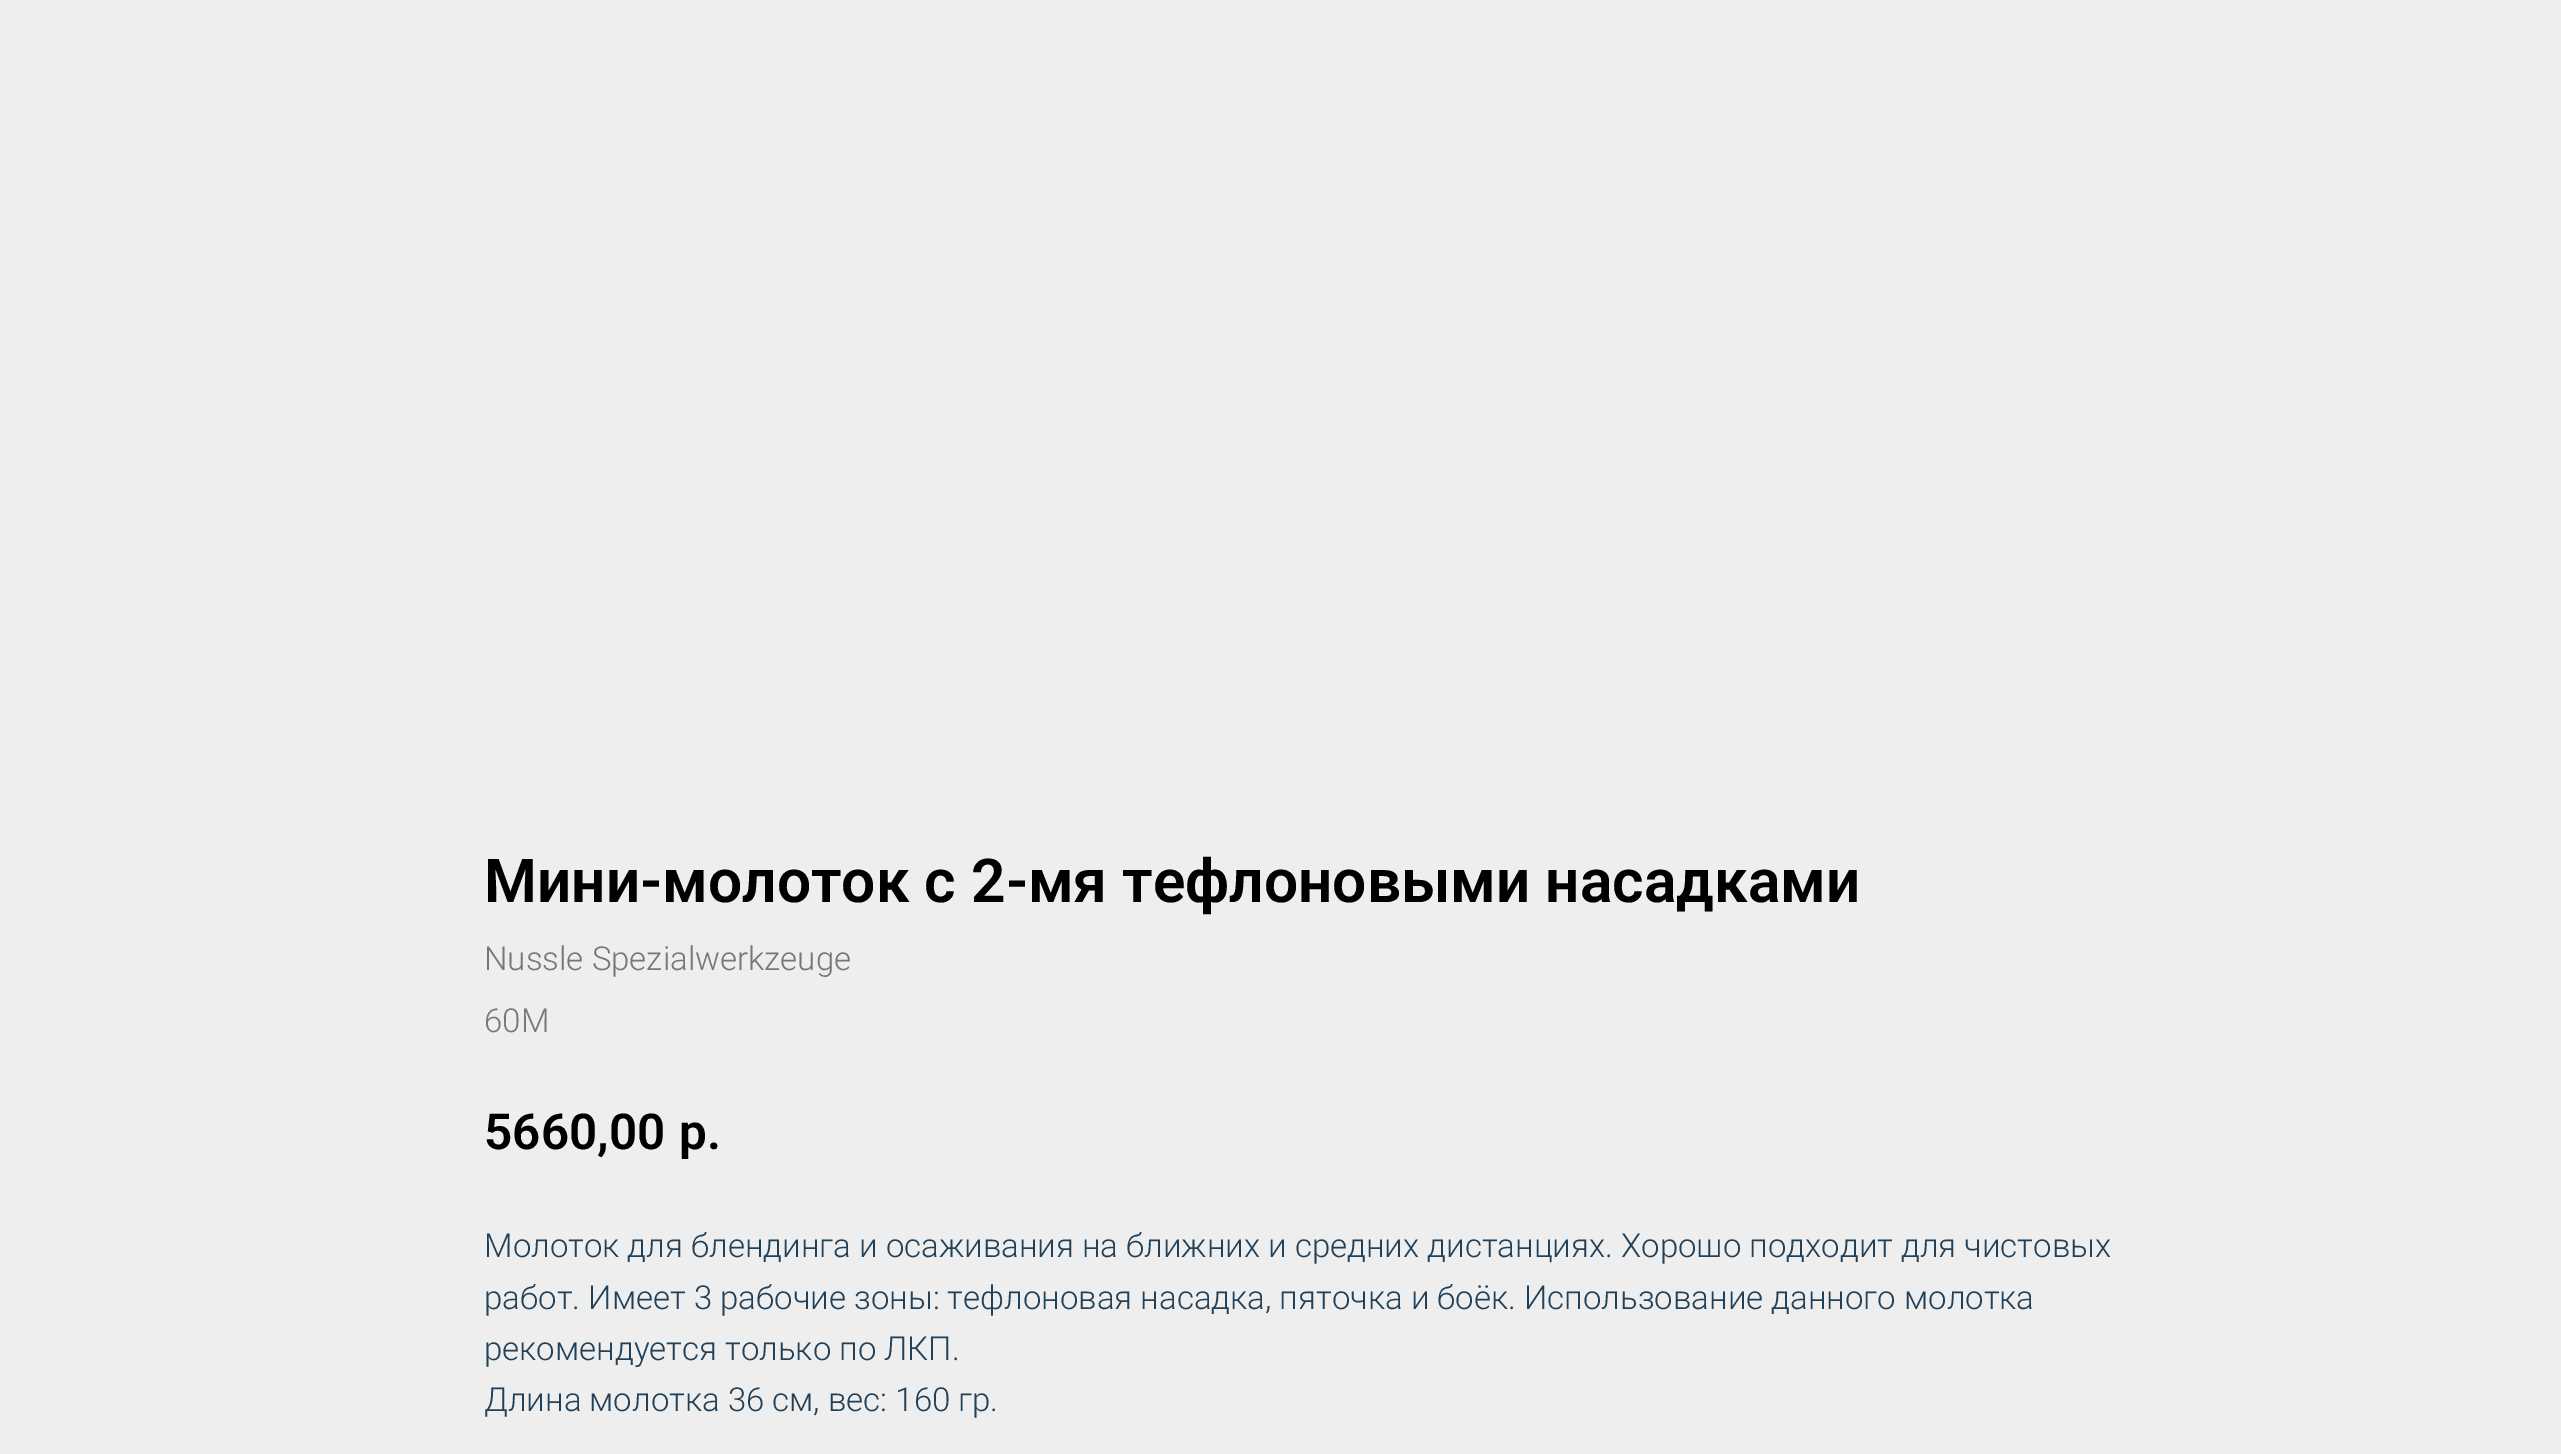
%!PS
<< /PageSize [2561 1454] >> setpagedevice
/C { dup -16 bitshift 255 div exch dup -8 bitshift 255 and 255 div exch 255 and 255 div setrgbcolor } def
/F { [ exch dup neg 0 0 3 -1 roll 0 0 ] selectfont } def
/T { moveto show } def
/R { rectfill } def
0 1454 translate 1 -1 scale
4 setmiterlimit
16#EEEEEE C
0 0 2561 1454 R
/Roboto-SemiBold 60.5 F
16#000000 C
(Мини-молоток с 2-мя тефлоновыми насадками) 484 902 T
/Roboto-Light 33 F
16#777777 C
(Nussle Spezialwerkzeuge) 484 970 T
(60M) 484 1032 T
/Roboto-SemiBold 49.5 F
16#000000 C
(5660,00) 484 1149 T
(р.) 679 1149 T
/Roboto-Light 33 F
16#21415A C
(Молоток для блендинга и осаживания на ближних и средних дистанциях. Хорошо подходит для чистовых) 484 1257 T
(работ. Имеет 3 рабочие зоны: тефлоновая насадка, пяточка и боёк. Использование данного молотка) 484 1309 T
(рекомендуется только по ЛКП.) 484 1360 T
(Длина молотка 36 см, вес: 160 гр.) 484 1411 T
showpage
